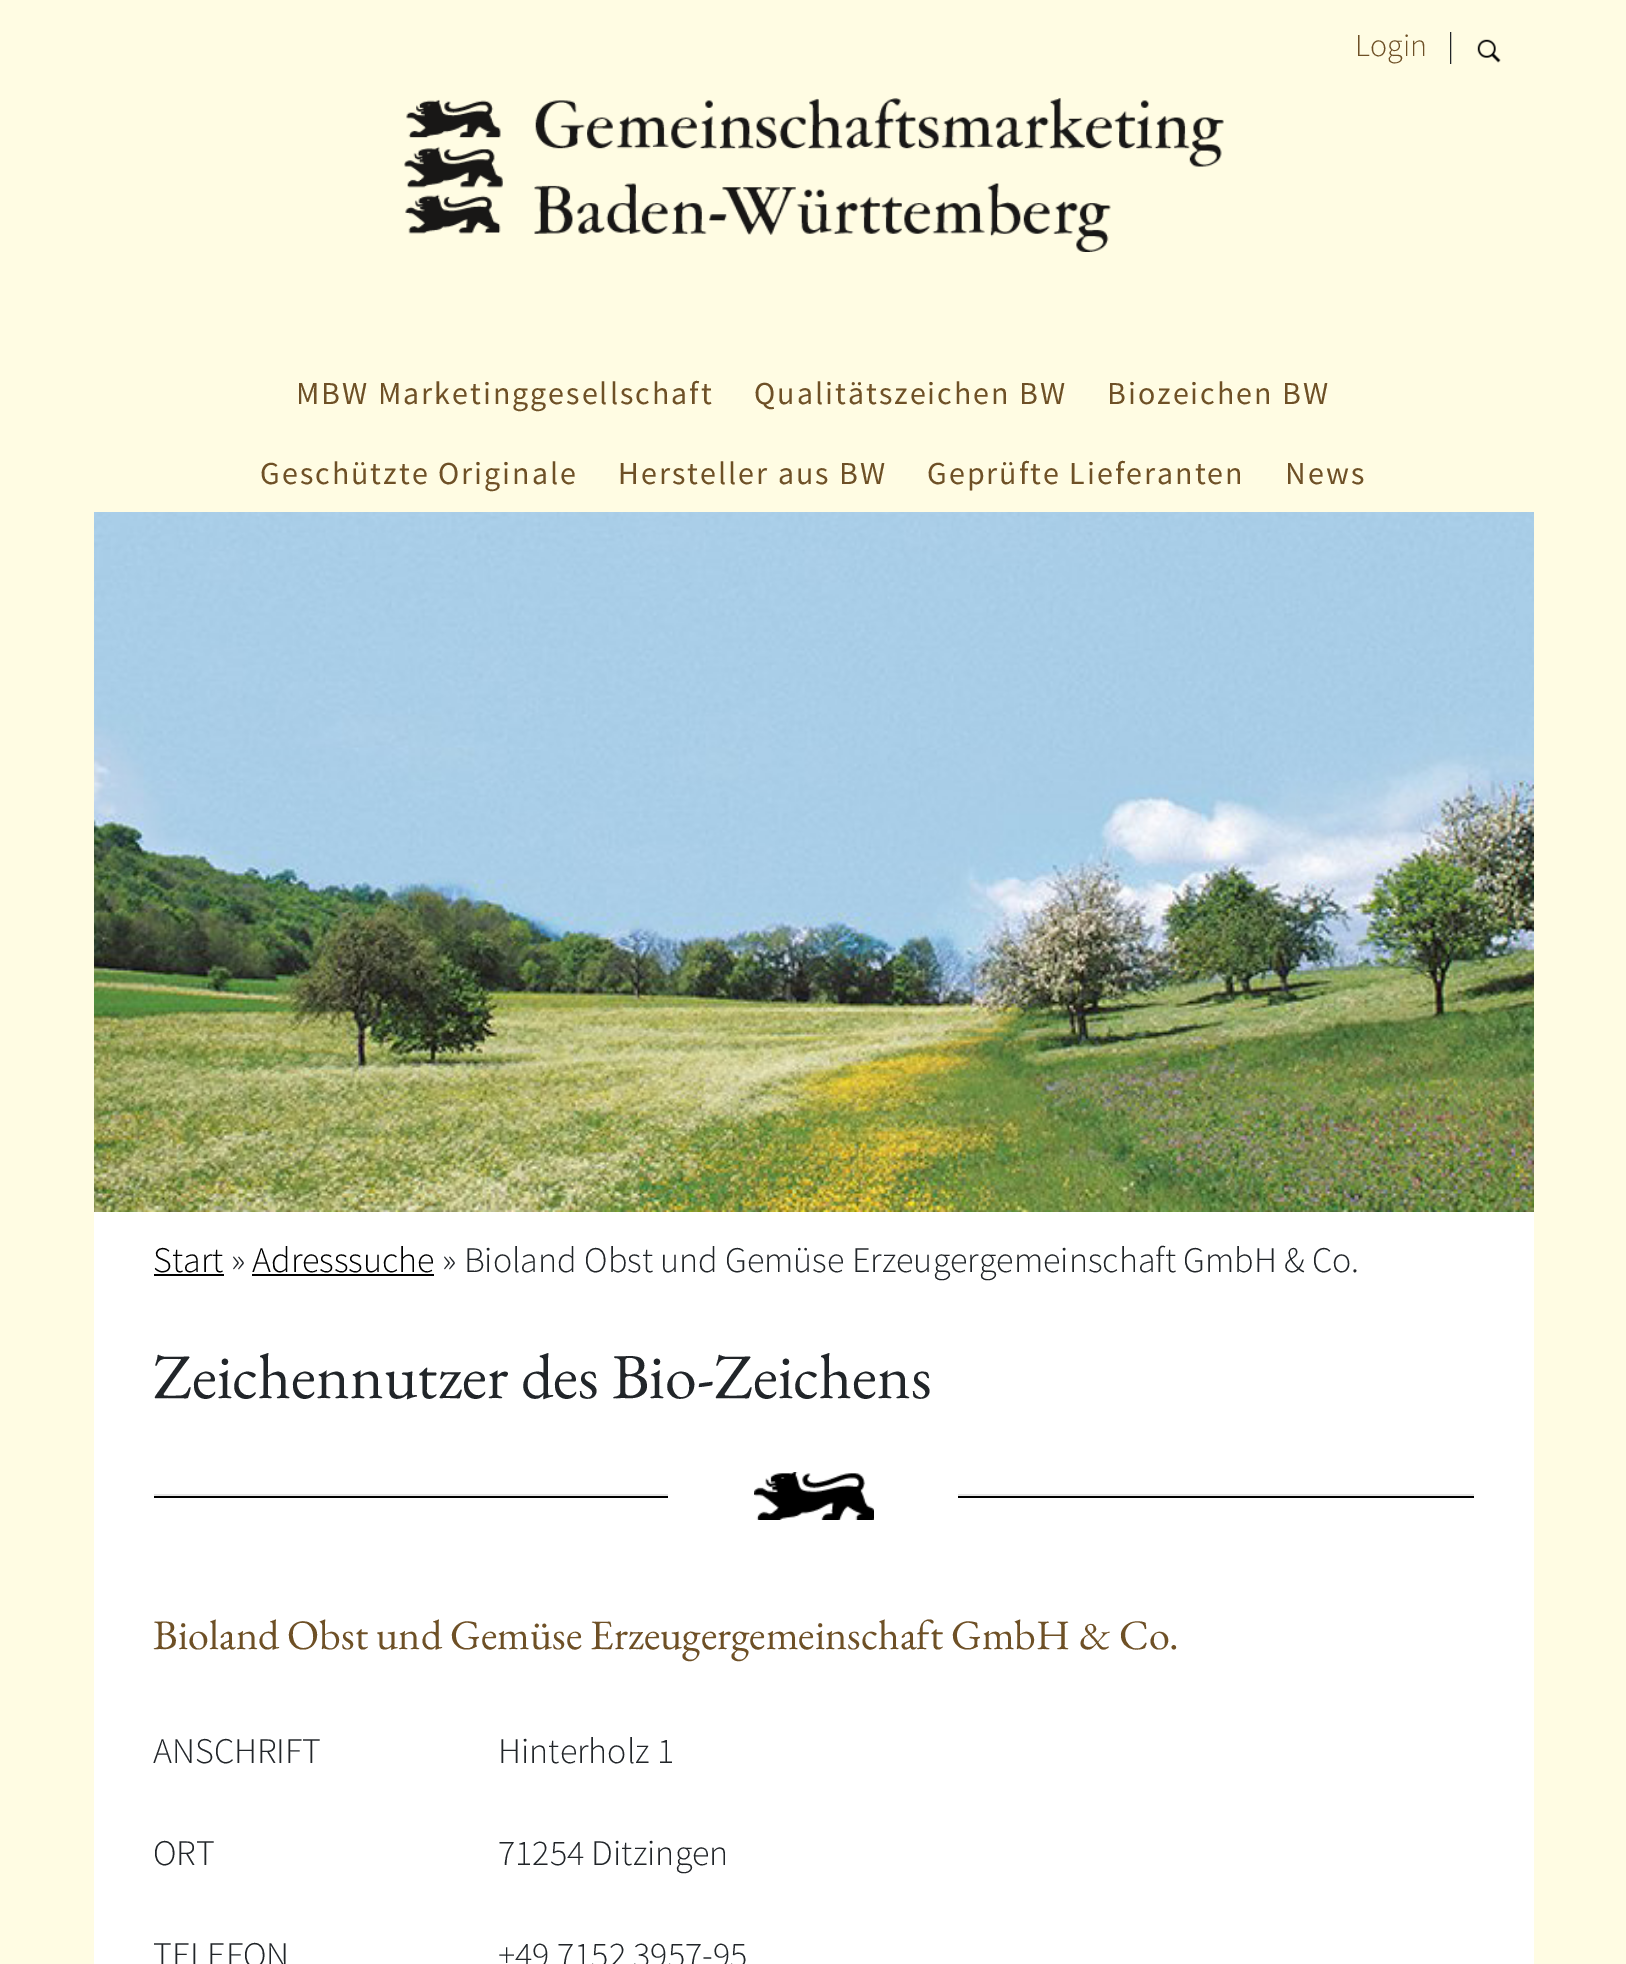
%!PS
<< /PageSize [1626 1964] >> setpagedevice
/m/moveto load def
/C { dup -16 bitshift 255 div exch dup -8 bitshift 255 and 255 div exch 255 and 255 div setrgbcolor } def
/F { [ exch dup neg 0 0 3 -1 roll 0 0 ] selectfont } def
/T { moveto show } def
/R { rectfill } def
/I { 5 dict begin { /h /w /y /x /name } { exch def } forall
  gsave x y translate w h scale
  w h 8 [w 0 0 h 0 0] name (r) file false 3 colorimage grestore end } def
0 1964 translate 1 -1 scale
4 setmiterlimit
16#FFFCE3 C
0 0 1626 1964 R
/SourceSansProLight-Light 32 F
16#6E5026 C
(Login) 1355 56 T
16#212529 C
(|) 1447 56 T
(1.rgb) 1477 39 24 24 I
(2.rgb) 404 98 820 154 I
/SourceSansPro-Regular 32 F
16#6E5026 C
296 404 m 2 0 (MBW Marketinggesellschaft) ashow
754 404 m 2 0 (Qualitätszeichen BW) ashow
1107 404 m 2 0 (Biozeichen BW) ashow
260 484 m 2 0 (Geschützte Originale) ashow
618 484 m 2 0 (Hersteller aus BW) ashow
927 484 m 2 0 (Geprüfte Lieferanten) ashow
1285 484 m 2 0 (News) ashow
(3.rgb) 94 512 1440 700 I
16#FFFFFF C
94 1212 1440 752 R
/SourceSansProLight-Light 36 F
16#000000 C
(Start) 153 1272 T
154 1274 70 2 R
16#212529 C
(») 231 1272 T
16#000000 C
(Adresssuche) 252 1272 T
252 1274 182 2 R
16#212529 C
(» Bioland Obst und Gemüse Erzeugergemeinschaft GmbH & Co.) 442 1272 T
/EBGaramond-Regular 64 F
(Zeichennutzer des Bio-Zeichens) 153 1398 T
16#E6E6E6 C
154 1494 514 2 R
16#000000 C
154 1496 514 2 R
(4.rgb) 754 1472 120 48 I
16#E6E6E6 C
958 1494 516 2 R
16#000000 C
958 1496 516 2 R
/EBGaramond-Regular 42 F
16#6E5026 C
(Bioland Obst und Gemüse Erzeugergemeinschaft GmbH & Co.) 153 1649 T
/SourceSansProLight-Light 36 F
16#212529 C
(ANSCHRIFT) 153 1763 T
(Hinterholz 1) 498 1763 T
(ORT) 153 1865 T
(71254 Ditzingen) 498 1865 T
(TELEFON) 153 1967 T
(+49 7152 3957-95) 498 1967 T
showpage
